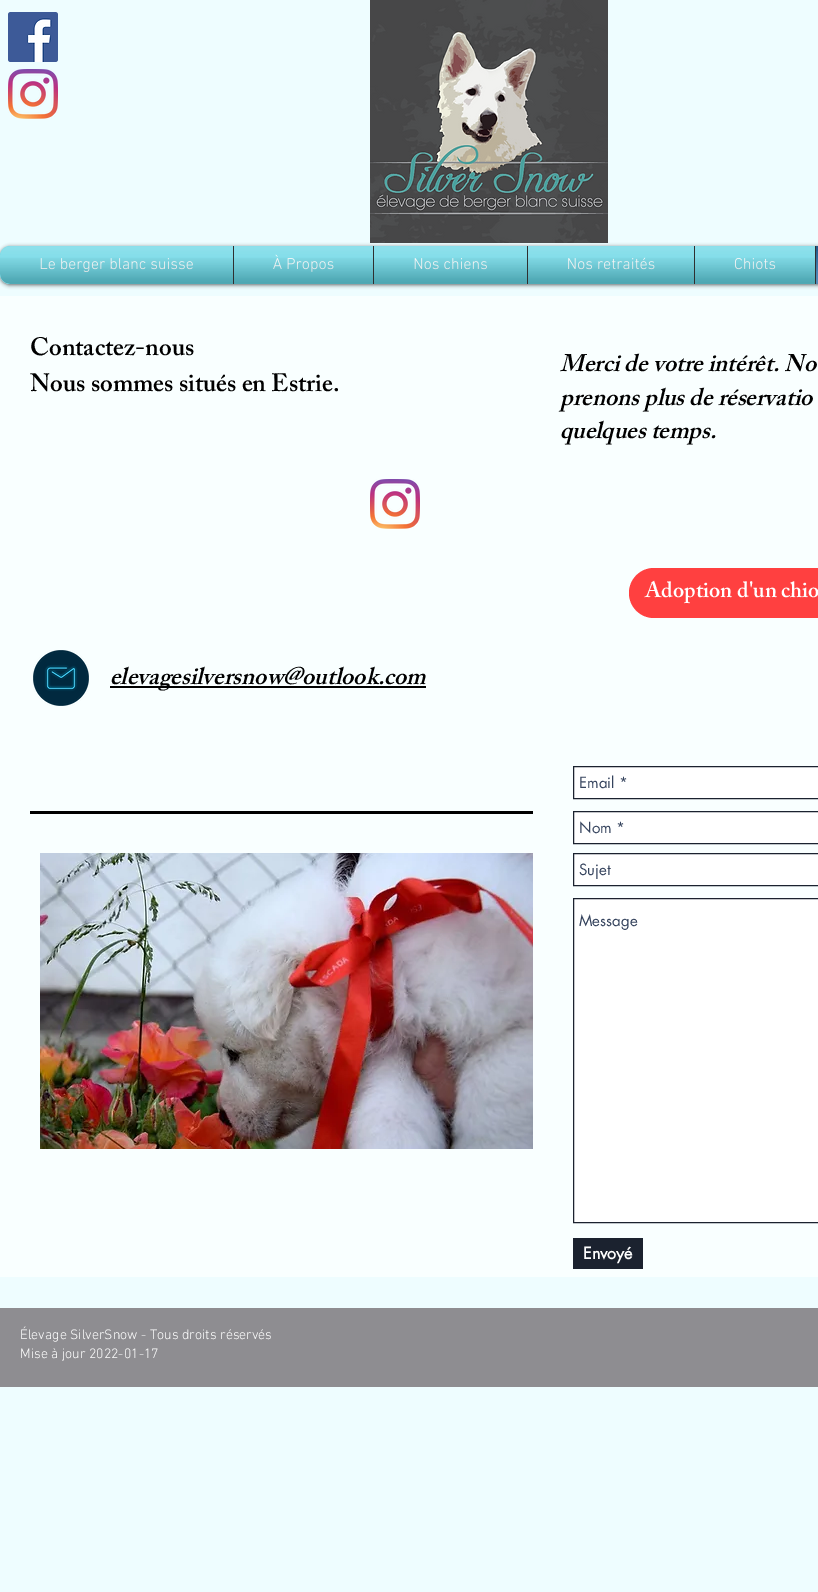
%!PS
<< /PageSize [818 1592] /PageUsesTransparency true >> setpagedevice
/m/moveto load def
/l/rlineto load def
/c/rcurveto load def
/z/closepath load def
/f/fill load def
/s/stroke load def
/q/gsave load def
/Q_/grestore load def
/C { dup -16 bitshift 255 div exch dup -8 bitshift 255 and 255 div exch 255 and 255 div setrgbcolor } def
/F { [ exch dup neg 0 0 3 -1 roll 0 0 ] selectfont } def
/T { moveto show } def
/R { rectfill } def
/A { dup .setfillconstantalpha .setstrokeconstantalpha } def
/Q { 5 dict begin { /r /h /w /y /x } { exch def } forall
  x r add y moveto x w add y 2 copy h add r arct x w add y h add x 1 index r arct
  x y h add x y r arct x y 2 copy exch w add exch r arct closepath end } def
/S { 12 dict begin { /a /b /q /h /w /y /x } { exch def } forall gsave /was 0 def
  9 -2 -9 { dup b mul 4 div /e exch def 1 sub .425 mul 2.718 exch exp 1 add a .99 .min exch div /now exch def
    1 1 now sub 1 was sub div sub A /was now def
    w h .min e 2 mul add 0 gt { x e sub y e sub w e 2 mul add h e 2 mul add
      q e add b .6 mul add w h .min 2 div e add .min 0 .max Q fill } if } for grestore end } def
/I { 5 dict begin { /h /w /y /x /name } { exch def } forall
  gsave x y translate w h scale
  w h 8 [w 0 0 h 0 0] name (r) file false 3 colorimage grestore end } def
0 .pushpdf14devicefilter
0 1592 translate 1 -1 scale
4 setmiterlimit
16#EEFDFF C
0 0 818 1592 R
(1.rgb) 8 12 50 50 I
(2.rgb) 370 0 238 243 I
(3.rgb) 8 69 50 50 I
q
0 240 m 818 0 l 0 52 l -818 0 l z 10 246 m 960 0 l 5.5 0 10 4.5 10 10 c 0 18 l 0 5.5 -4.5 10 -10 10 c -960 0 l -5.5 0 -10 -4.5 -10 -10 c 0 -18 l 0 -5.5 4.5 -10 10 -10 c z eoclip newpath
16#000000 C
0 247 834 38 10 2 .6 S
Q_
0.61 A
16#50CFE0 C
0 246 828 38 10 Q f
1 A
(4.rgb) 0 246 815 30 I
(5.rgb) 0 258 815 26 I
0.61 A
10 246 m 223 0 l 0 38 l -223 0 l -5.5 0 -10 -4.5 -10 -10 c 0 -18 l 0 -5.5 4.5 -10 10 -10 c z f
/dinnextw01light-Light 16 F
1 A
16#FFFFFF C
(Le berger blanc suisse) 39 269 T
(6.rgb) 0 246 233 32 I
(7.rgb) 0 258 233 26 I
0.61 A
16#50CFE0 C
234 246 139 38 R
1 A
16#2F2F30 C
233 246 1 38 R
16#FFFFFF C
(À Propos) 273 269 T
(8.rgb) 234 246 139 32 I
(9.rgb) 234 258 139 26 I
0.61 A
16#50CFE0 C
374 246 153 38 R
1 A
16#2F2F30 C
373 246 1 38 R
16#FFFFFF C
(Nos chiens) 413 269 T
(10.rgb) 374 246 153 32 I
(11.rgb) 374 258 153 26 I
0.61 A
16#50CFE0 C
528 246 166 38 R
1 A
16#2F2F30 C
527 246 1 38 R
16#FFFFFF C
(Nos retraités) 567 269 T
(12.rgb) 528 246 166 32 I
(13.rgb) 528 258 166 26 I
0.61 A
16#50CFE0 C
695 246 120 38 R
1 A
16#2F2F30 C
694 246 1 38 R
16#FFFFFF C
(Chiots) 734 269 T
(14.rgb) 695 246 120 32 I
(15.rgb) 695 258 120 26 I
16#2B6CA3 C
816 246 2 38 R
16#2F2F30 C
815 246 1 38 R
(16.rgb) 816 246 2 25 I
(17.rgb) 816 251 2 33 I
16#F9FFFF C
0 296 818 981 R
/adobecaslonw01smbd-SemiBold 25 F
16#000000 C
(Contactez-nous) 30 355 T
(Nous sommes situés en Estrie.) 30 391 T
/adobecaslonw01smbd-SemiBoldItalic 24 F
(Merci de votre intérêt. No) 560 371 T
(prenons plus de réservatio) 560 405 T
(quelques temps.) 560 438 T
(18.rgb) 370 479 50 50 I
16#FF4040 C
629 568 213 50 25 Q f
/adobecaslonw01smbd-SemiBold 22 F
16#FFFFFF C
(Adoption d'un chio) 645 597 T
(19.rgb) 33 650 56 56 I
16#000000 C
110 686 316 2 R
/adobecaslonw01smbd-SemiBoldItalic 24 F
(elevagesilversnow@outlook.com) 110 684 T
30 811 503 3 R
16#FFFFFF C
573.5 766.5 m 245 0 l 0 32 l -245 0 l z q f Q_
16#1B222F C
s
/futura-Regular 15 F
16#35435D C
(Email *) 579 788 T
16#FFFFFF C
573.5 811.5 m 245 0 l 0 32 l -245 0 l z q f Q_
16#1B222F C
s
16#35435D C
(Nom *) 579 833 T
16#FFFFFF C
573.5 853.5 m 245 0 l 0 32 l -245 0 l z q f Q_
16#1B222F C
s
16#35435D C
(Sujet) 579 875 T
16#FFFFFF C
573.5 898.5 m 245 0 l 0 324 l -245 0 l z q f Q_
16#1B222F C
s
16#35435D C
(Message) 579 926 T
16#1B222F C
573 1238 70 31 R
/futura-Bold 16 F
16#FFFFFF C
(Envoyé) 583 1259 T
(20.rgb) 40 853 493 296 I
16#8E8D91 C
0 1308 818 79 R
/dinnextw01light-Light 14 F
16#FFFFFF C
(Élevage SilverSnow - Tous droits réservés) 20 1339 T
(Mise à jour 2022-01-17) 20 1358 T
.poppdf14devicefilter showpage
